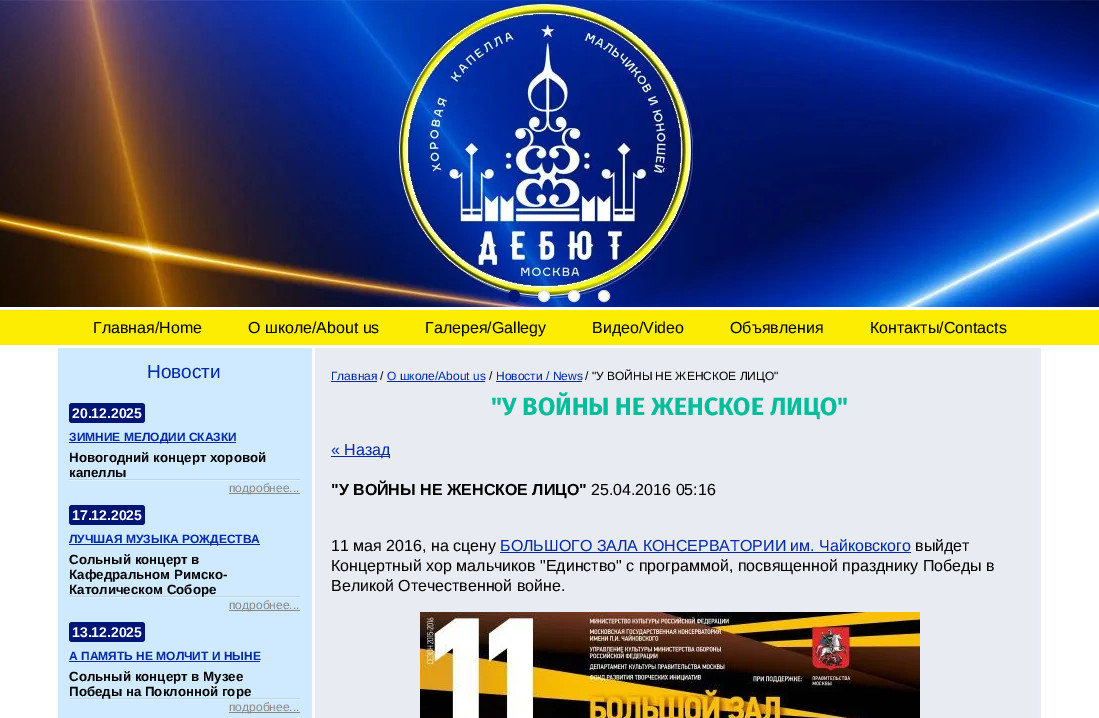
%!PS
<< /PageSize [1099 718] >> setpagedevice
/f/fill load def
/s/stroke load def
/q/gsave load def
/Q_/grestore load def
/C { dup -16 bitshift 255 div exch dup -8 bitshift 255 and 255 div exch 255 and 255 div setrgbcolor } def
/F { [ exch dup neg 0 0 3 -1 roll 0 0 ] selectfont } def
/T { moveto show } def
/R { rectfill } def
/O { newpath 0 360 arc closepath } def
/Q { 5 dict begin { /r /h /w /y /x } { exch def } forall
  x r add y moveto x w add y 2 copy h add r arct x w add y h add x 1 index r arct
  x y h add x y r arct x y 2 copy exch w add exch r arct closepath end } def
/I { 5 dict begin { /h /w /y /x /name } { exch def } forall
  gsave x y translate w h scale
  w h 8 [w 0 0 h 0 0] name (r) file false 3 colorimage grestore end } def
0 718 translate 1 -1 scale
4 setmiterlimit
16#FFFFFF C
0 0 1099 718 R
(1.rgb) 56 348 986 370 I
(2.rgb) 0 0 1099 307 I
(3.rgb) 60 0 980 307 I
16#001674 C
514 296 5.5 O q f Q_
s
16#FFFFFF C
544 296 5.5 O q f Q_
16#D9D9D9 C
s
16#FFFFFF C
574 296 5.5 O q f Q_
16#D9D9D9 C
s
16#FFFFFF C
604 296 5.5 O q f Q_
16#D9D9D9 C
s
16#FCED02 C
0 310 1099 35 R
/LiberationSans-Regular 16 F
16#000000 C
(Главная/Home) 93 333 T
(О школе/About us) 248 333 T
(Галерея/Gallegy) 425 333 T
(Видео/Video) 592 333 T
(Объявления) 730 333 T
(Контакты/Contacts) 870 333 T
/LiberationSans-Regular 19 F
16#002AA3 C
(Новости) 147 378 T
16#001674 C
69 403 76 20 3 Q f
/LiberationSans-Bold 14 F
16#FFFFFF C
(20.12.2025) 72 418 T
16#002AA3 C
69 442 167 1 R
/LiberationSans-Bold 12 F
(ЗИМНИЕ МЕЛОДИИ СКАЗКИ) 69 441 T
(4.rgb) 69 479 231 2 I
/LiberationSans-Bold 13.3 F
16#000000 C
(Новогодний концерт хоровой) 69 462 T
(капеллы) 69 477 T
16#898989 C
229 493 71 1 R
/LiberationSans-Regular 12 F
(подробнее...) 229 492 T
16#001674 C
69 505 76 20 3 Q f
/LiberationSans-Bold 14 F
16#FFFFFF C
(17.12.2025) 72 520 T
16#002AA3 C
69 544 191 1 R
/LiberationSans-Bold 12 F
(ЛУЧШАЯ МУЗЫКА РОЖДЕСТВА) 69 543 T
(4.rgb) 69 596 231 2 I
/LiberationSans-Bold 13.3 F
16#000000 C
(Сольный концерт в) 69 564 T
(Кафедральном Римско-) 69 579 T
(Католическом Соборе) 69 594 T
16#898989 C
229 610 71 1 R
/LiberationSans-Regular 12 F
(подробнее...) 229 609 T
16#001674 C
69 622 76 20 3 Q f
/LiberationSans-Bold 14 F
16#FFFFFF C
(13.12.2025) 72 637 T
/LiberationSans-Bold 12 F
16#002AA3 C
(А ПАМЯТЬ НЕ МОЛЧИТ И НЫНЕ) 69 660 T
69 661 191 1 R
(4.rgb) 69 698 231 2 I
/LiberationSans-Bold 13.3 F
16#000000 C
(Сольный концерт в Музее) 69 681 T
(Победы на Поклонной горе) 69 696 T
16#898989 C
229 712 71 1 R
/LiberationSans-Regular 12 F
(подробнее...) 229 711 T
16#002AA3 C
(Главная) 331 380 T
331 381 46 1 R
16#000000 C
(/) 380 380 T
16#002AA3 C
(О школе/About us) 387 380 T
387 381 98 1 R
16#000000 C
(/) 489 380 T
16#002AA3 C
(Новости / News) 496 380 T
496 381 86 1 R
16#000000 C
(/ "У ВОЙНЫ НЕ ЖЕНСКОЕ ЛИЦО") 585 380 T
/FiraSans-Bold 25 F
16#00BE9A C
("У ВОЙНЫ НЕ ЖЕНСКОЕ ЛИЦО") 491 415 T
16#002AA3 C
331 456 59 1 R
/LiberationSans-Regular 16 F
(« Назад) 331 455 T
/LiberationSans-Bold 16 F
16#000000 C
("У ВОЙНЫ НЕ ЖЕНСКОЕ ЛИЦО") 331 495 T
/LiberationSans-Regular 16 F
(25.04.2016 05:16) 591 495 T
(11 мая 2016, на сцену) 331 551 T
16#002AA3 C
(БОЛЬШОГО ЗАЛА КОНСЕРВАТОРИИ им. Чайковского) 500 551 T
500 552 411 1 R
16#000000 C
(выйдет) 915 551 T
(Концертный хор мальчиков "Единство" с программой, посвященной празднику Победы в) 331 571 T
(Великой Отечественной войне.) 331 591 T
(5.rgb) 420 612 500 106 I
showpage
